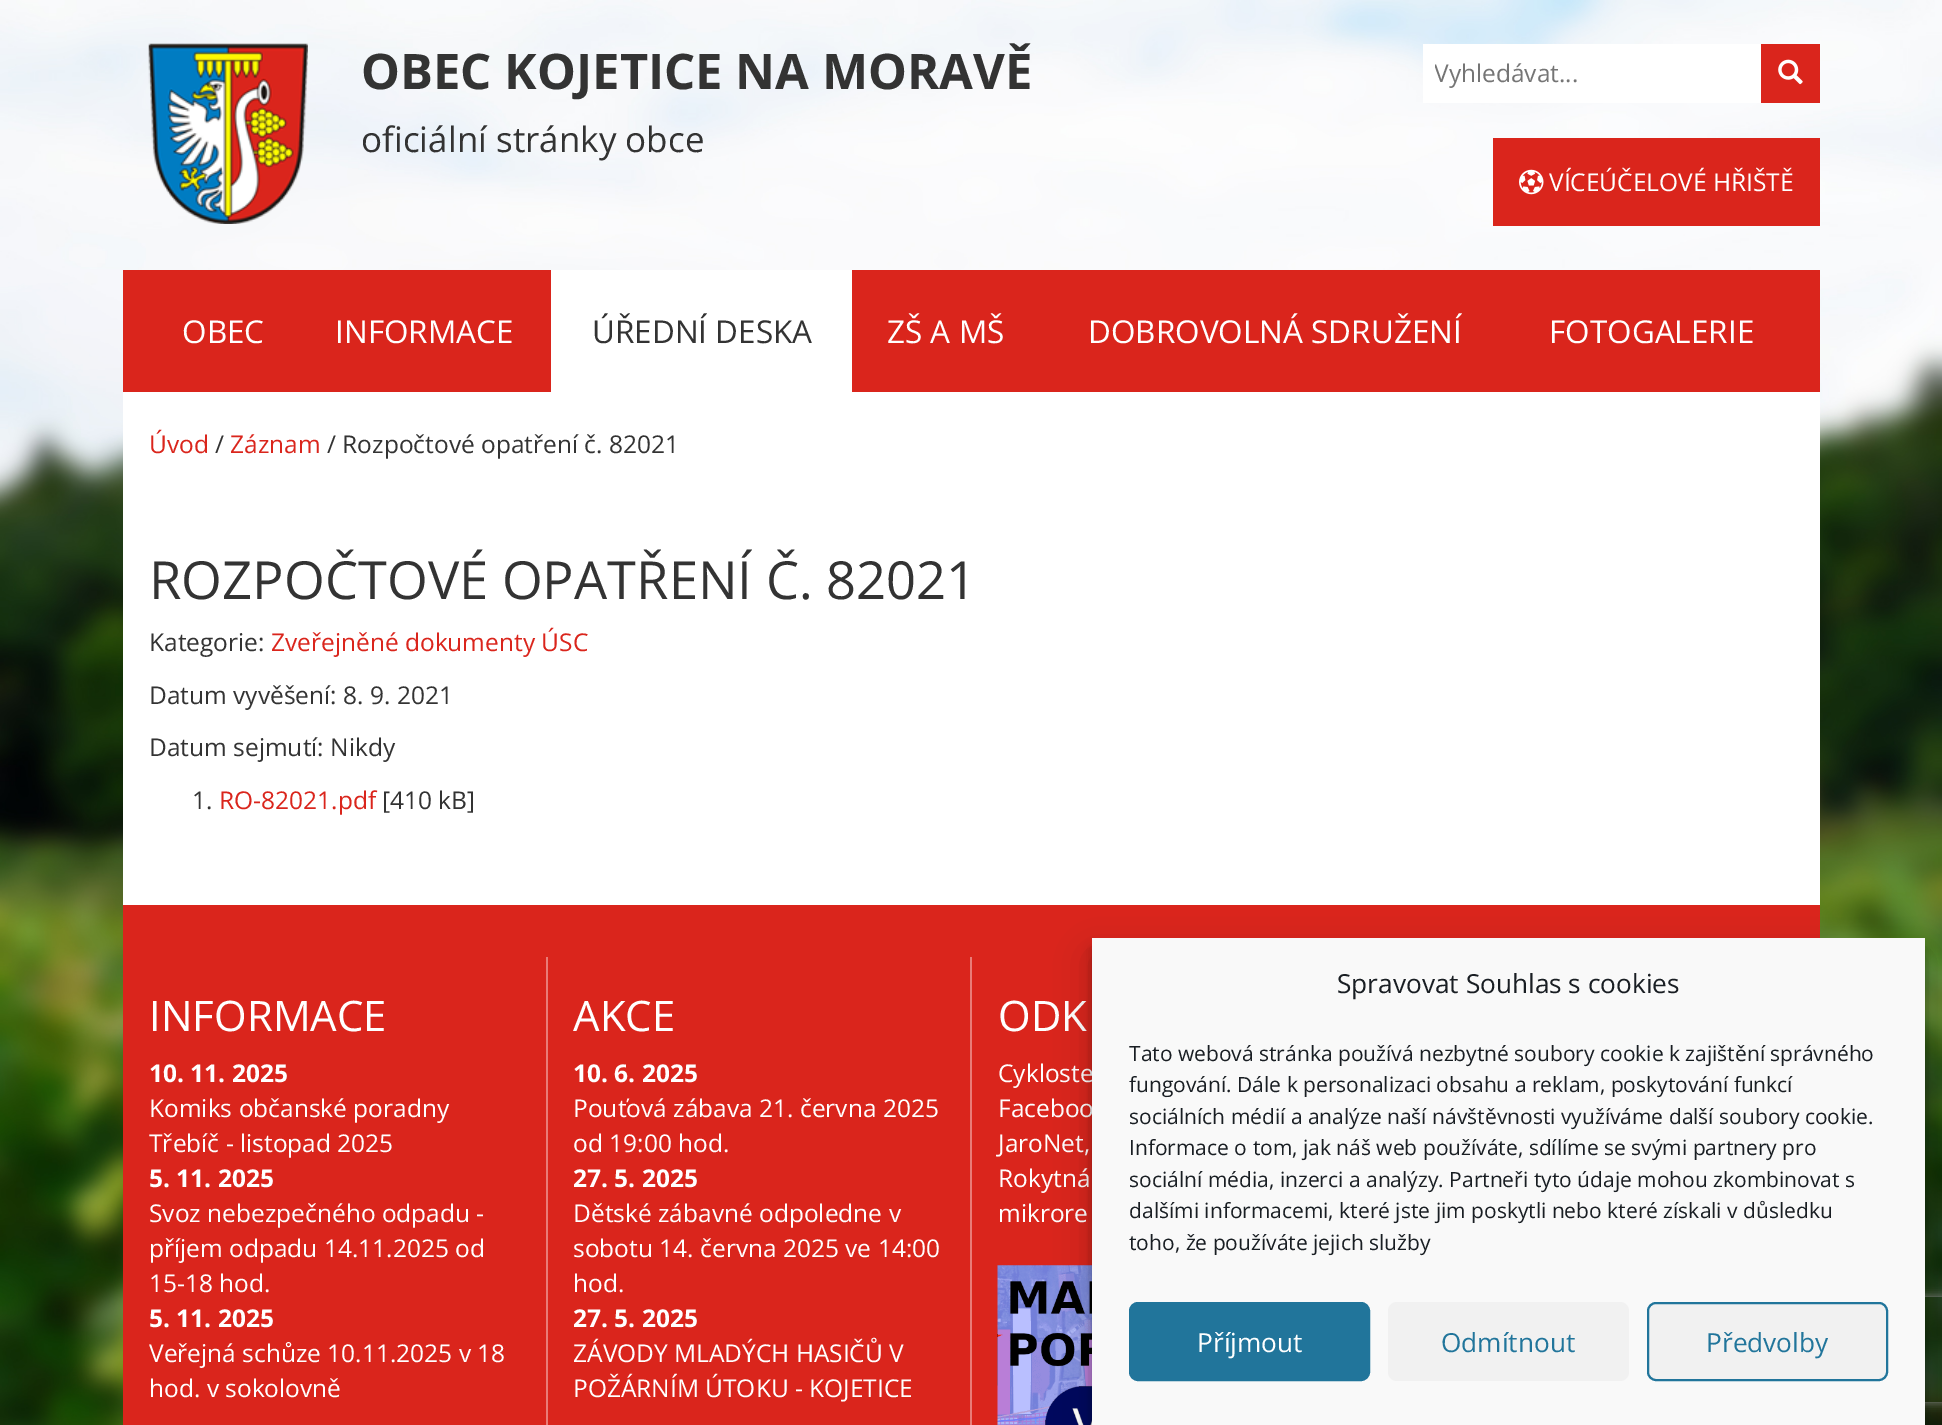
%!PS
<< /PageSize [1942 1425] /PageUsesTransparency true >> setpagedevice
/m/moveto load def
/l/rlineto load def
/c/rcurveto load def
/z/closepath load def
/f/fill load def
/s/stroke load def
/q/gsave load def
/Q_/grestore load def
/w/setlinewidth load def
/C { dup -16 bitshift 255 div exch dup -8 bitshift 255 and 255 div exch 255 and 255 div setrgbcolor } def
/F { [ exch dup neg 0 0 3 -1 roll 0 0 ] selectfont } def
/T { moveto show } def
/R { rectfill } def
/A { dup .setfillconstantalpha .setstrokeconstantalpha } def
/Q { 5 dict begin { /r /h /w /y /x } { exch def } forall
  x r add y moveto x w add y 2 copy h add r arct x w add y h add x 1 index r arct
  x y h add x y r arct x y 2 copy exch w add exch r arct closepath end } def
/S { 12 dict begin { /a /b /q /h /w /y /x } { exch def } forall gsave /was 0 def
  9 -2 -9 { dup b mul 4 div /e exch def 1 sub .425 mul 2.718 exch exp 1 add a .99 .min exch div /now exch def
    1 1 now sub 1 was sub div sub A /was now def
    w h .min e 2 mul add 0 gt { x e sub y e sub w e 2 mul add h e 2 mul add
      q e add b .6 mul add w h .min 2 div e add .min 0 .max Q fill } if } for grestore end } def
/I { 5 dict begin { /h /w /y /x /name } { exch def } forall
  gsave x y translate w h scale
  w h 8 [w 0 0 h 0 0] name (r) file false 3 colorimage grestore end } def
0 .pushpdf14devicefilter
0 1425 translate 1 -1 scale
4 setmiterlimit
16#FFFFFF C
0 0 1942 1425 R
(1.rgb) 0 0 1942 1425 I
(2.rgb) 148 43 160 181 I
/OpenSans-Bold 49 F
16#333333 C
(OBEC KOJETICE NA MORAVĚ) 361 89 T
/OpenSans-Regular 35 F
(oficiální stránky obce) 361 152 T
16#FFFFFF C
1423 44 338 59 R
q
1435 56 373 33 rectclip
/OpenSans-Regular 24.5 F
16#757575 C
(Vyhledávat...) 1434 82 T
Q_
16#DA251C C
1761 44 59 59 R
(3.rgb) 1778 59 25 26 I
1493 138 327 88 R
(4.rgb) 1519 169 25 26 I
/OpenSans-Regular 24.5 F
16#FFFFFF C
(VÍCEÚČELOVÉ HŘIŠTĚ) 1549 191 T
16#DA251C C
123 270 1697 122 R
/OpenSans-Regular 31.5 F
16#FFFFFF C
(OBEC) 182 343 T
(INFORMACE) 335 343 T
551 270 301 122 R
16#333333 C
(ÚŘEDNÍ DESKA) 592 343 T
16#FFFFFF C
(ZŠ A MŠ) 887 343 T
(DOBROVOLNÁ SDRUŽENÍ) 1088 343 T
(FOTOGALERIE) 1549 343 T
123 392 1697 513 R
/OpenSans-Regular 24.5 F
16#DA251C C
(Úvod) 149 453 T
16#333333 C
(/) 215 453 T
16#DA251C C
(Záznam) 230 453 T
16#333333 C
(/ Rozpočtové opatření č. 82021) 327 453 T
/OpenSans-Regular 52.5 F
(ROZPOČTOVÉ OPATŘENÍ Č. 82021) 149 599 T
/OpenSans-Regular 24.5 F
(Kategorie:) 149 651 T
16#DA251C C
(Zveřejněné dokumenty ÚSC) 271 651 T
16#333333 C
(Datum vyvěšení: 8. 9. 2021) 149 704 T
(Datum sejmutí: Nikdy) 149 756 T
(1.) 192 809 T
16#DA251C C
(RO-82021.pdf) 219 809 T
16#333333 C
([410 kB]) 382 809 T
16#DA251C C
123 905 1697 520 R
16#E97C77 C
546 957 2 468 R
/OpenSans-Regular 42 F
16#FFFFFF C
(INFORMACE) 149 1031 T
/OpenSans-Bold 24.5 F
(10. 11. 2025) 149 1082 T
/OpenSans-Regular 24.5 F
(Komiks občanské poradny) 149 1117 T
(Třebíč - listopad 2025) 149 1152 T
/OpenSans-Bold 24.5 F
(5. 11. 2025) 149 1187 T
/OpenSans-Regular 24.5 F
(Svoz nebezpečného odpadu -) 149 1222 T
(příjem odpadu 14.11.2025 od) 149 1257 T
(15-18 hod.) 149 1292 T
/OpenSans-Bold 24.5 F
(5. 11. 2025) 149 1327 T
/OpenSans-Regular 24.5 F
(Veřejná schůze 10.11.2025 v 18) 149 1362 T
(hod. v sokolovně) 149 1397 T
16#E97C77 C
970 957 2 468 R
/OpenSans-Regular 42 F
16#FFFFFF C
(AKCE) 573 1031 T
/OpenSans-Bold 24.5 F
(10. 6. 2025) 573 1082 T
/OpenSans-Regular 24.5 F
(Pouťová zábava 21. června 2025) 573 1117 T
(od 19:00 hod.) 573 1152 T
/OpenSans-Bold 24.5 F
(27. 5. 2025) 573 1187 T
/OpenSans-Regular 24.5 F
(Dětské zábavné odpoledne v) 573 1222 T
(sobotu 14. června 2025 ve 14:00) 573 1257 T
(hod.) 573 1292 T
/OpenSans-Bold 24.5 F
(27. 5. 2025) 573 1327 T
/OpenSans-Regular 24.5 F
(ZÁVODY MLADÝCH HASIČŮ V) 573 1362 T
(POŽÁRNÍM ÚTOKU - KOJETICE) 573 1397 T
/OpenSans-Regular 42 F
(ODK) 998 1031 T
/OpenSans-Regular 24.5 F
(Cykloste) 998 1082 T
(Faceboo) 998 1117 T
(JaroNet,) 998 1152 T
(Rokytná) 998 1187 T
(mikrore) 998 1222 T
(5.rgb) 997 1265 95 160 I
16#000000 C
1092 949 833 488 0 5 .23 S
1092 956 833 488 0 17.5 .19 S
q
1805 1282 m 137 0 l 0 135 l -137 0 l z 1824 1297 m 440 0 l 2 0 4 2 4 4 c 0 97 l 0 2 -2 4 -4 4 c -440 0 l -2 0 -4 -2 -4 -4 c 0 -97 l 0 -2 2 -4 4 -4 c z eoclip newpath
16#808080 C
1820 1297 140 105 4 4.5 1 S
Q_
16#F9F9F9 C
1092 938 833 487 R
/OpenSans-Regular 26.25 F
16#191E23 C
(Spravovat Souhlas s cookies) 1337 993 T
/OpenSans-Regular 21 F
(Tato webová stránka používá nezbytné soubory cookie k zajištění správného) 1129 1061 T
(fungování. Dále k personalizaci obsahu a reklam, poskytování funkcí) 1129 1092 T
(sociálních médií a analýze naší návštěvnosti využíváme další soubory cookie.) 1129 1124 T
(Informace o tom, jak náš web používáte, sdílíme se svými partnery pro) 1129 1155 T
(sociální média, inzerci a analýzy. Partneři tyto údaje mohou zkombinovat s) 1129 1187 T
(dalšími informacemi, které jste jim poskytli nebo které získali v důsledku) 1129 1218 T
(toho, že používáte jejich služby) 1129 1250 T
16#21759B C
1130 1303 239 77 8 Q q f Q_
2 w
s
/OpenSans-Regular 26.25 F
16#FFFFFF C
(Příjmout) 1197 1352 T
16#F1F1F1 C
1388 1302 241 79 9 Q f
16#21759B C
(Odmítnout) 1441 1352 T
16#F1F1F1 C
1648 1303 239 77 8 Q q f Q_
16#21759B C
s
(Předvolby) 1706 1352 T
.poppdf14devicefilter showpage
